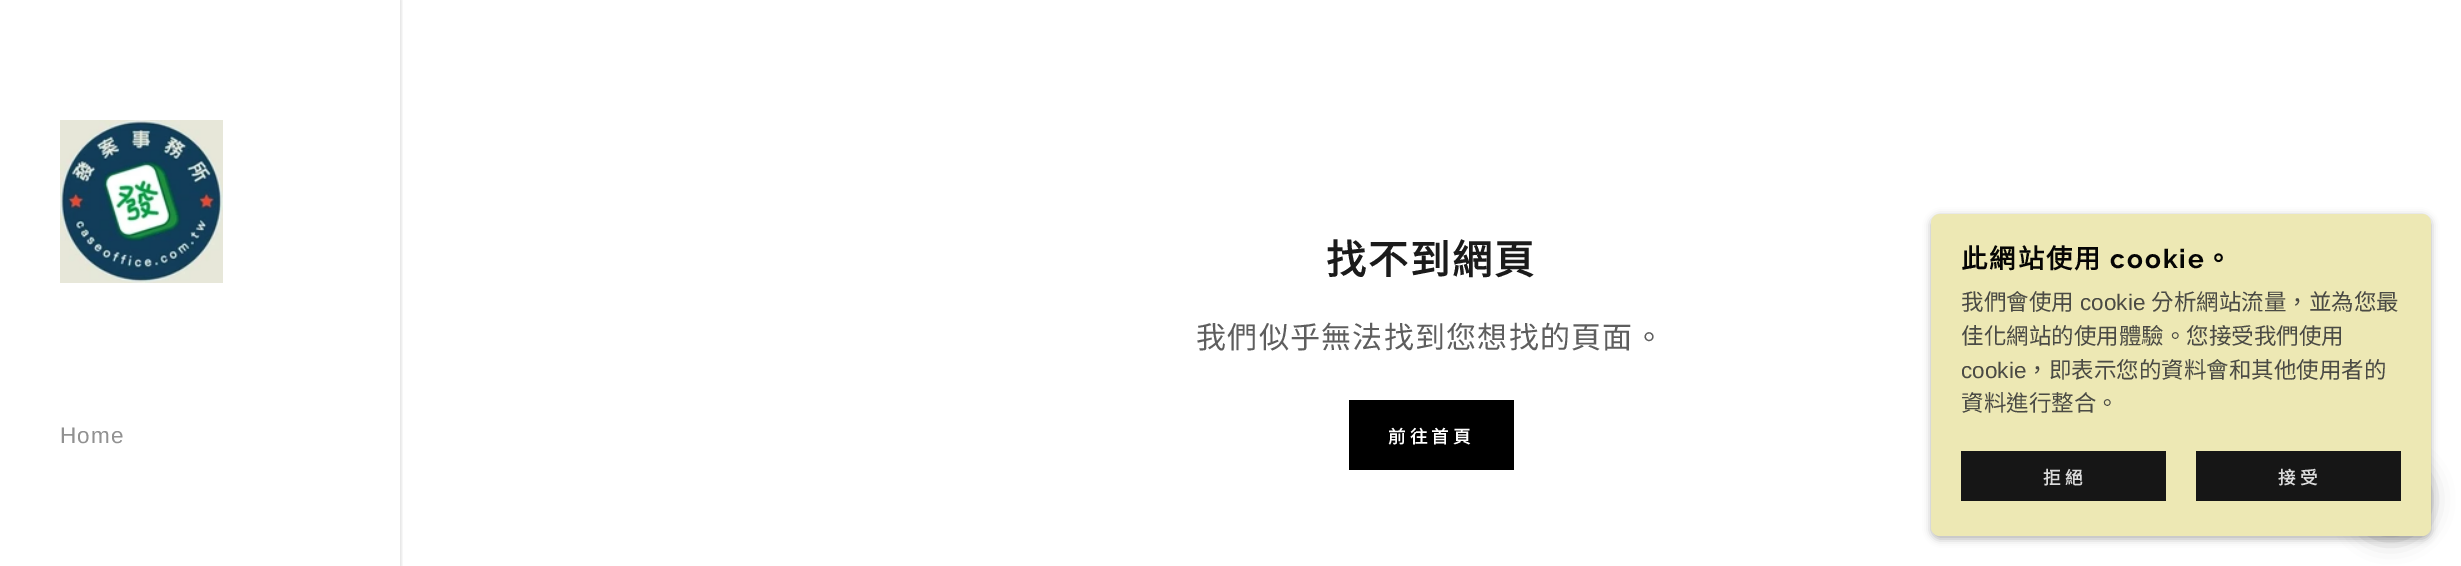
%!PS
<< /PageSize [2461 566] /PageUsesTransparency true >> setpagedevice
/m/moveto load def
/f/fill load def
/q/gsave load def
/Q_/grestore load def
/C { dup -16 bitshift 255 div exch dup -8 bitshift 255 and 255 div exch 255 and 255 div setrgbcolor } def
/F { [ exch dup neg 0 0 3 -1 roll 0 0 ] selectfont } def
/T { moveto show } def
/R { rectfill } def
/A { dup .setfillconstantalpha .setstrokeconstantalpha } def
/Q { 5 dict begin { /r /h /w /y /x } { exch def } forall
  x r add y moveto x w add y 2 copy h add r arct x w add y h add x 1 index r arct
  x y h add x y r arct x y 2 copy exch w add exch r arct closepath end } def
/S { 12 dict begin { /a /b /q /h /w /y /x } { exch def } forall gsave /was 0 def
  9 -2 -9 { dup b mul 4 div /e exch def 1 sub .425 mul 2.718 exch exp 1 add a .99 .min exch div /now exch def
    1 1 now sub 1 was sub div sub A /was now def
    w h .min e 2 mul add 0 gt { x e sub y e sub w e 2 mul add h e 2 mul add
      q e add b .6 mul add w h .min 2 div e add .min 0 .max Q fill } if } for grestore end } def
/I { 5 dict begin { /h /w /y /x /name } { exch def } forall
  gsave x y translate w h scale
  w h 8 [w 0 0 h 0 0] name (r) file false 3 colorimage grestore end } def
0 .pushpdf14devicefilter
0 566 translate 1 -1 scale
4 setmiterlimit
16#FFFFFF C
0 0 2461 566 R
/NotoSansCJKTC-Bold 40 F
16#1B1B1B C
1326 274 m 2 0 (找不到網頁) ashow
/NotoSansCJKTC-Regular 30 F
16#5E5E5E C
1196 348 m 1.25 0 (我們似乎無法找到您想找的頁面。) ashow
16#000000 C
1349 400 165 70 R
/NotoSansCJKTC-Bold 17.5 F
16#FFFFFF C
1388 443 m 4 0 (前往首頁) ashow
16#000000 C
1931 216 500 323 9 4 .3 S
2350 459 81 81 40.5 11 .25 S
16#EDE8B4 C
1931 214 500 322 9 Q f
/NotoSansCJKTC-Bold 26.25 F
16#050504 C
1961 268 m 2 0 (此網站使用) ashow
/Raleway-Bold 26.25 F
2110 268 m 2 0 (cookie) ashow
/NotoSansCJKTC-Bold 26.25 F
2205 268 m 2 0 (。) ashow
/NotoSansCJKTC-Regular 22.5 F
16#4A4A44 C
(我們會使用) 1961 310 T
/LiberationSans-Regular 22.5 F
(cookie) 2080 310 T
/NotoSansCJKTC-Regular 22.5 F
(分析網站流量，並為您最) 2151 310 T
(佳化網站的使用體驗。您接受我們使用) 1961 344 T
/LiberationSans-Regular 22.5 F
(cookie) 1961 378 T
/NotoSansCJKTC-Regular 22.5 F
(，即表示您的資料會和其他使用者的) 2026 378 T
(資料進行整合。) 1961 411 T
16#161616 C
1961 451 205 50 R
/NotoSansCJKTC-Bold 17.5 F
16#DBDBDB C
2043 484 m 4 0 (拒絕) ashow
16#161616 C
2196 451 205 50 R
16#DBDBDB C
2278 484 m 4 0 (接受) ashow
q
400 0 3 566 rectclip
16#000000 C
0 0 400 566 0 2.5 .2 S
Q_
(1.rgb) 60 120 163 163 I
/LiberationSans-Regular 22.5 F
16#919191 C
60 443 m 1.25 0 (Home) ashow
.poppdf14devicefilter showpage
